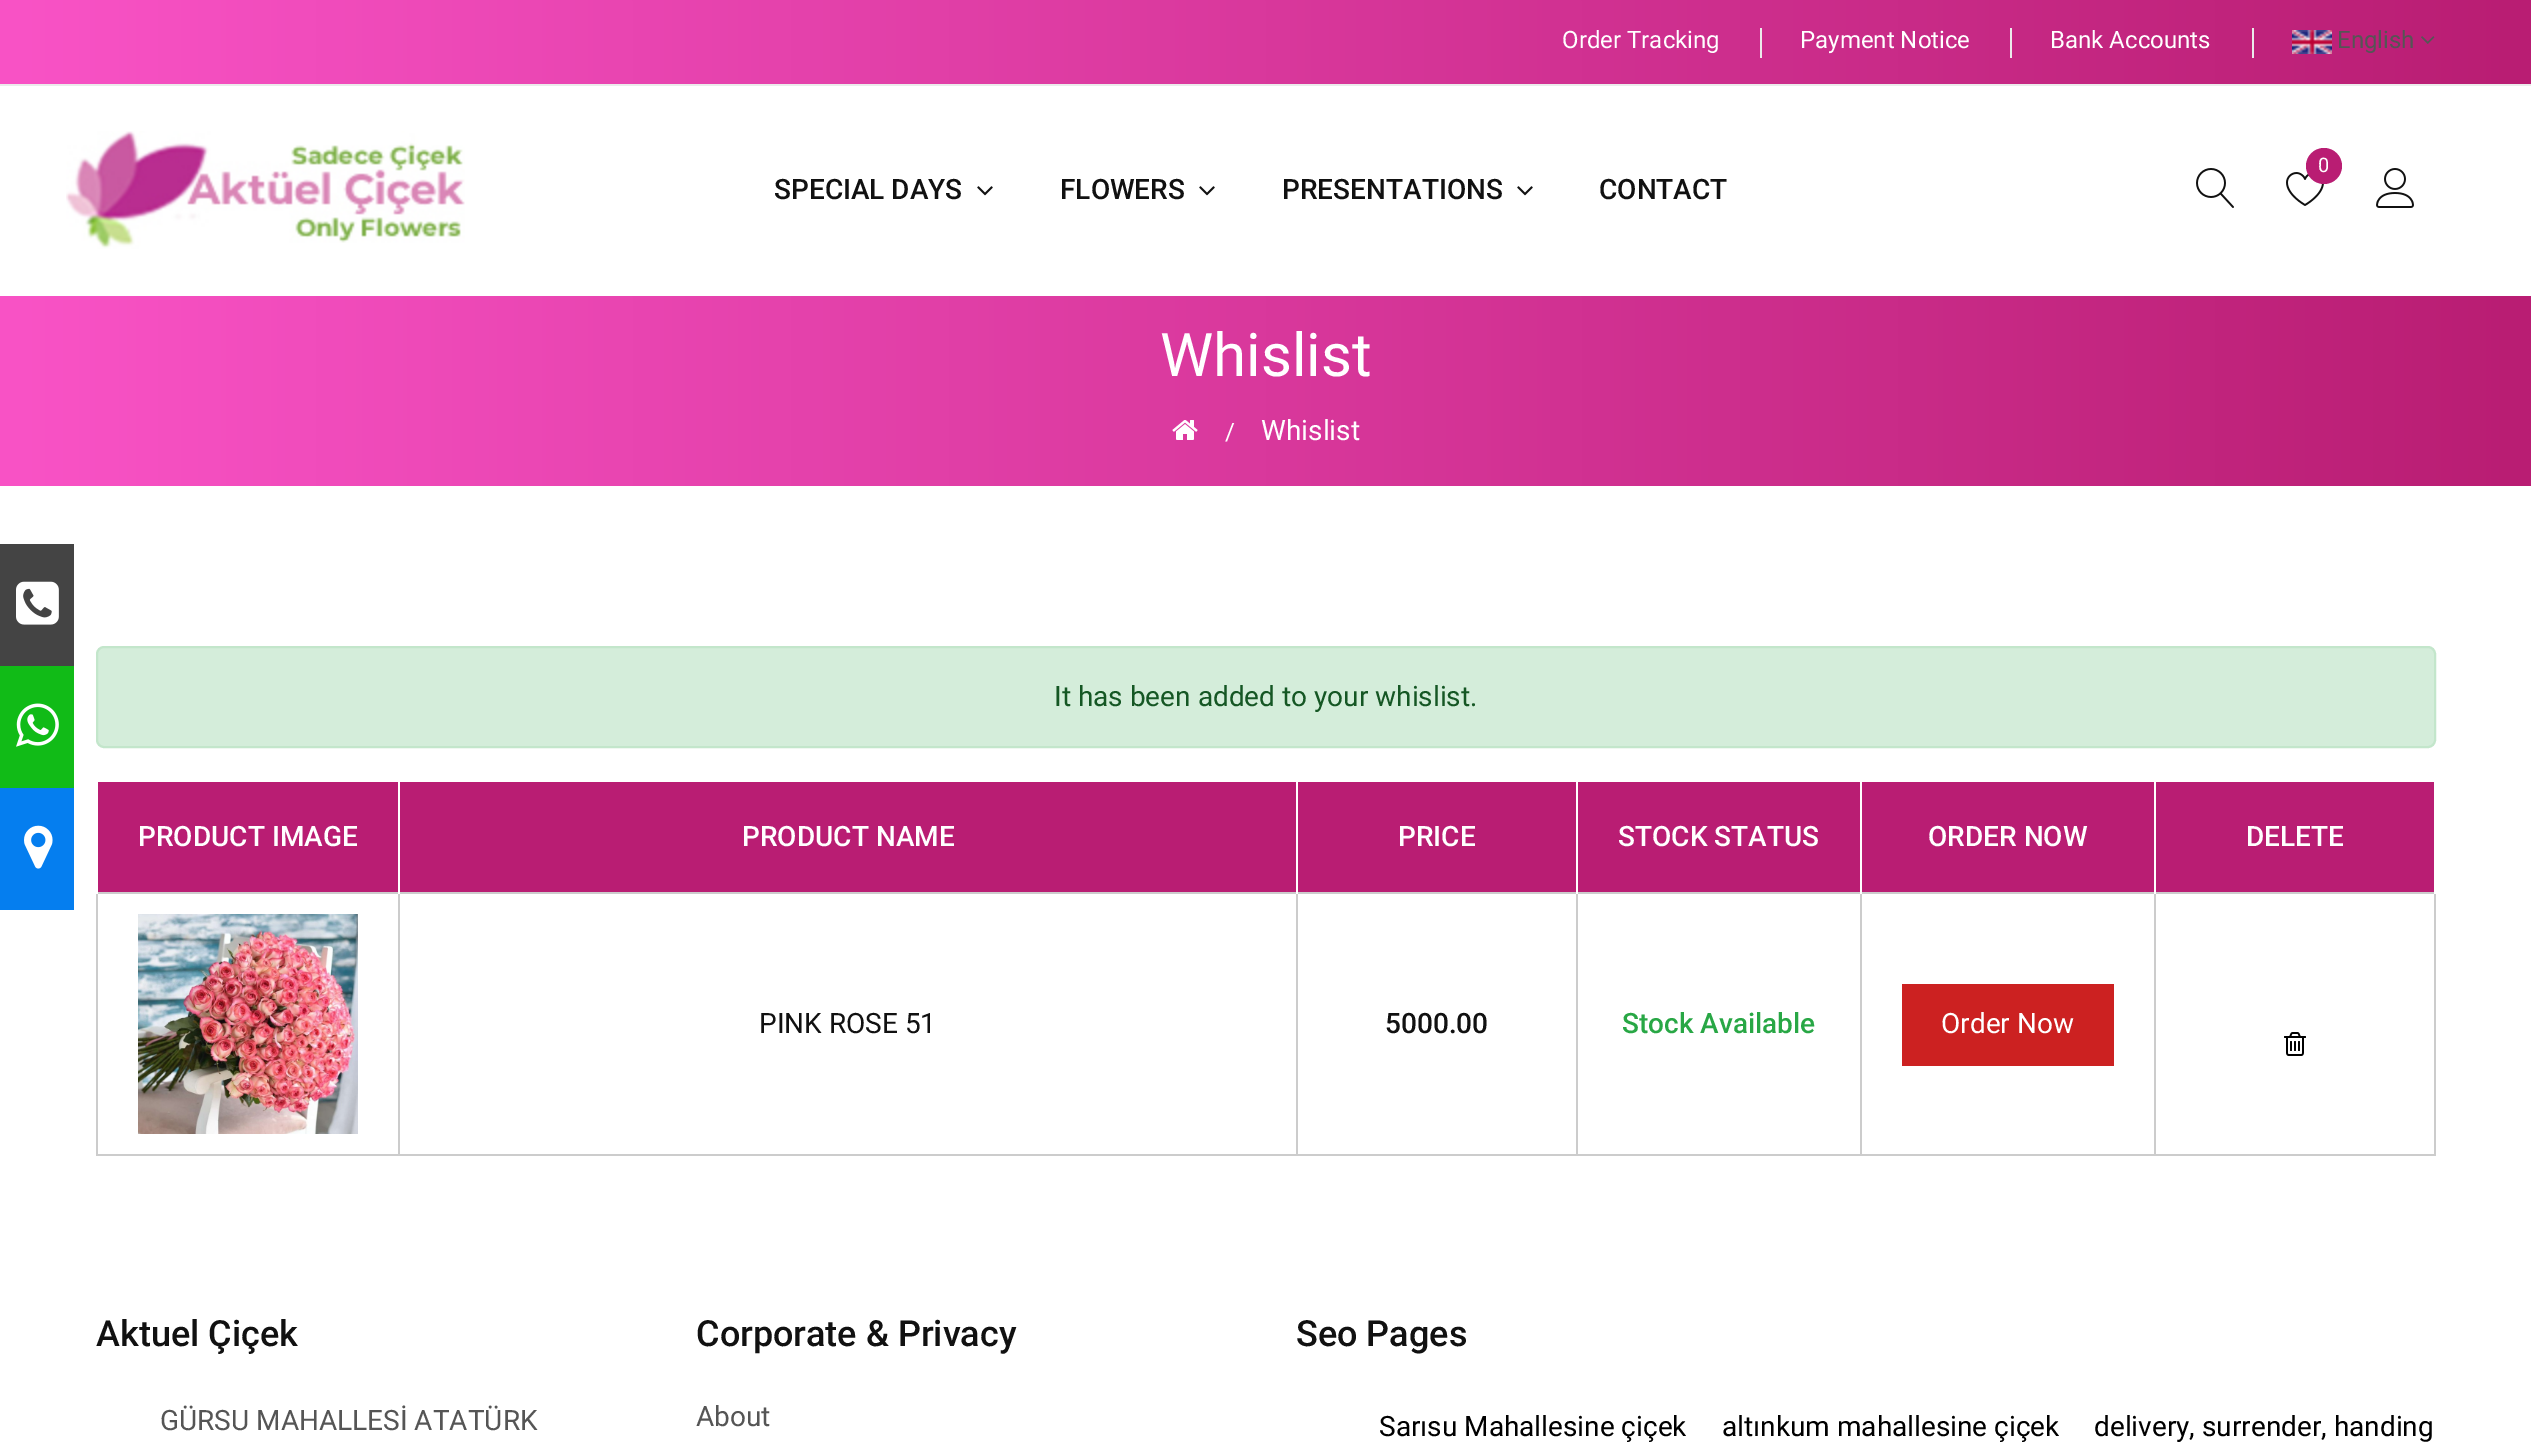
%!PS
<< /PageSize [2531 1450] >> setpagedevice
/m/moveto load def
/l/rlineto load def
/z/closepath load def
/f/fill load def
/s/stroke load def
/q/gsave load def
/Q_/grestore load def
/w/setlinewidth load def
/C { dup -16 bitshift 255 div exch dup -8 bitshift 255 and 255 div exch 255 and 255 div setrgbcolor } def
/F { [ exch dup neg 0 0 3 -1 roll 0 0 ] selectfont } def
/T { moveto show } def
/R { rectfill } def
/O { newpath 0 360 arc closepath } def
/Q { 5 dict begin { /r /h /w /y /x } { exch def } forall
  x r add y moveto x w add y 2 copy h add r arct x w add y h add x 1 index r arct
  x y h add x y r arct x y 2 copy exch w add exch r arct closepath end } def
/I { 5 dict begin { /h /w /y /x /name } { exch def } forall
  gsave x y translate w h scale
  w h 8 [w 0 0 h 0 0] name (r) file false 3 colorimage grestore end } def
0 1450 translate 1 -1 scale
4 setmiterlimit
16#FFFFFF C
0 0 2531 1450 R
q 0 0 m 2531 0 l 0 84 l -2531 0 l z clip newpath
<< /ShadingType 2 /ColorSpace /DeviceRGB /Coords [0 42 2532 42] /Extend [true true] /Function << /FunctionType 2 /Domain [0 1] /C0 [.976 .325 .776] /C1 [.725 .114 .451] /N 1 >> >> shfill Q_
16#EBEBEB C
0 84 2531 2 R
/Roboto-Regular 24 F
16#FFFFFF C
(Order Tracking) 1562 48 T
16#EBEBEB C
1760 28 2 30 R
16#FFFFFF C
(Payment Notice) 1800 48 T
16#EBEBEB C
2010 28 2 30 R
16#FFFFFF C
(Bank Accounts) 2050 48 T
16#EBEBEB C
2252 28 2 30 R
(1.rgb) 2292 30 40 24 I
16#555555 C
(English) 2337 48 T
(2.rgb) 2421 36 14 8 I
(3.rgb) 66 131 399 118 I
(4.rgb) 2286 172 38 34 I
16#B91D73 C
2324 166 18 O f
/Roboto-Regular 20 F
16#FFFFFF C
(0) 2318 172 T
(5.rgb) 2196 168 38 40 I
(6.rgb) 2376 168 38 40 I
/Roboto-Medium 28 F
16#111111 C
(SPECIAL DAYS) 774 199 T
(7.rgb) 977 186 16 10 I
(FLOWERS) 1060 199 T
(7.rgb) 1199 186 16 10 I
(PRESENTATIONS) 1282 199 T
(7.rgb) 1517 186 16 10 I
(CONTACT) 1599 199 T
16#444444 C
0 544 74 122 R
(8.rgb) 16 581 43 44 I
16#11BB17 C
0 666 74 122 R
(9.rgb) 16 703 43 44 I
16#057EEF C
0 788 74 122 R
(10.rgb) 24 825 29 44 I
q 0 296 m 2531 0 l 0 190 l -2531 0 l z clip newpath
<< /ShadingType 2 /ColorSpace /DeviceRGB /Coords [0 391 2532 391] /Extend [true true] /Function << /FunctionType 2 /Domain [0 1] /C0 [.976 .325 .776] /C1 [.725 .114 .451] /N 1 >> >> shfill Q_
/Roboto-Regular 60 F
16#FFFFFF C
(Whislist) 1160 376 T
(11.rgb) 1172 420 26 20 I
/Roboto-Regular 24 F
(/) 1225 440 T
/Roboto-Regular 28 F
(Whislist) 1261 440 T
16#D4EDDA C
97 647 2338 100 7 Q q f Q_
16#C3E6CB C
2 w
s
16#155724 C
(It has been added to your whislist.) 1054 706 T
16#B91D73 C
98 782 2336 110 R
16#CCCCCC C
2154 892 282 2 R
2434 892 2 264 R
2154 1154 282 2 R
2154 892 2 264 R
1860 892 296 2 R
1860 1154 296 2 R
1860 892 2 264 R
1576 892 286 2 R
1576 1154 286 2 R
1576 892 2 264 R
1296 892 282 2 R
1296 1154 282 2 R
1296 892 2 264 R
398 892 900 2 R
398 1154 900 2 R
398 892 2 264 R
96 892 304 2 R
96 1154 304 2 R
96 892 2 264 R
16#FFFFFF C
96 892 2 2 R
/Roboto-Medium 28 F
(PRODUCT IMAGE) 138 846 T
398 780 2 114 R
(PRODUCT NAME) 742 846 T
1296 780 2 114 R
(PRICE) 1398 846 T
1576 780 2 114 R
(STOCK STATUS) 1618 846 T
1860 780 2 114 R
(ORDER NOW) 1928 846 T
2434 892 2 2 R
2154 780 2 114 R
(DELETE) 2246 846 T
(12.rgb) 138 914 220 220 I
/Roboto-Regular 28 F
16#111111 C
(PINK ROSE 51) 759 1033 T
/Roboto-Medium 28 F
(5000.00) 1385 1033 T
16#28A745 C
(Stock Available) 1622 1033 T
16#CC2121 C
1902 984 212 82 R
/Roboto-Regular 28 F
16#FFFFFF C
(Order Now) 1941 1033 T
(13.rgb) 2284 1032 22 24 I
/Roboto-Medium 36 F
16#111111 C
(Aktuel Çiçek) 96 1346 T
/Roboto-Regular 28 F
16#555555 C
(GÜRSU MAHALLESİ ATATÜRK) 160 1430 T
/Roboto-Medium 36 F
16#111111 C
(Corporate & Privacy) 696 1346 T
/Roboto-Regular 28 F
16#555555 C
(About) 696 1426 T
/Roboto-Medium 36 F
16#111111 C
(Seo Pages) 1296 1346 T
/Roboto-Regular 28 F
16#000000 C
(Sarısu Mahallesine çiçek) 1379 1436 T
(altınkum mahallesine çiçek) 1722 1436 T
(delivery, surrender, handing) 2094 1436 T
showpage
